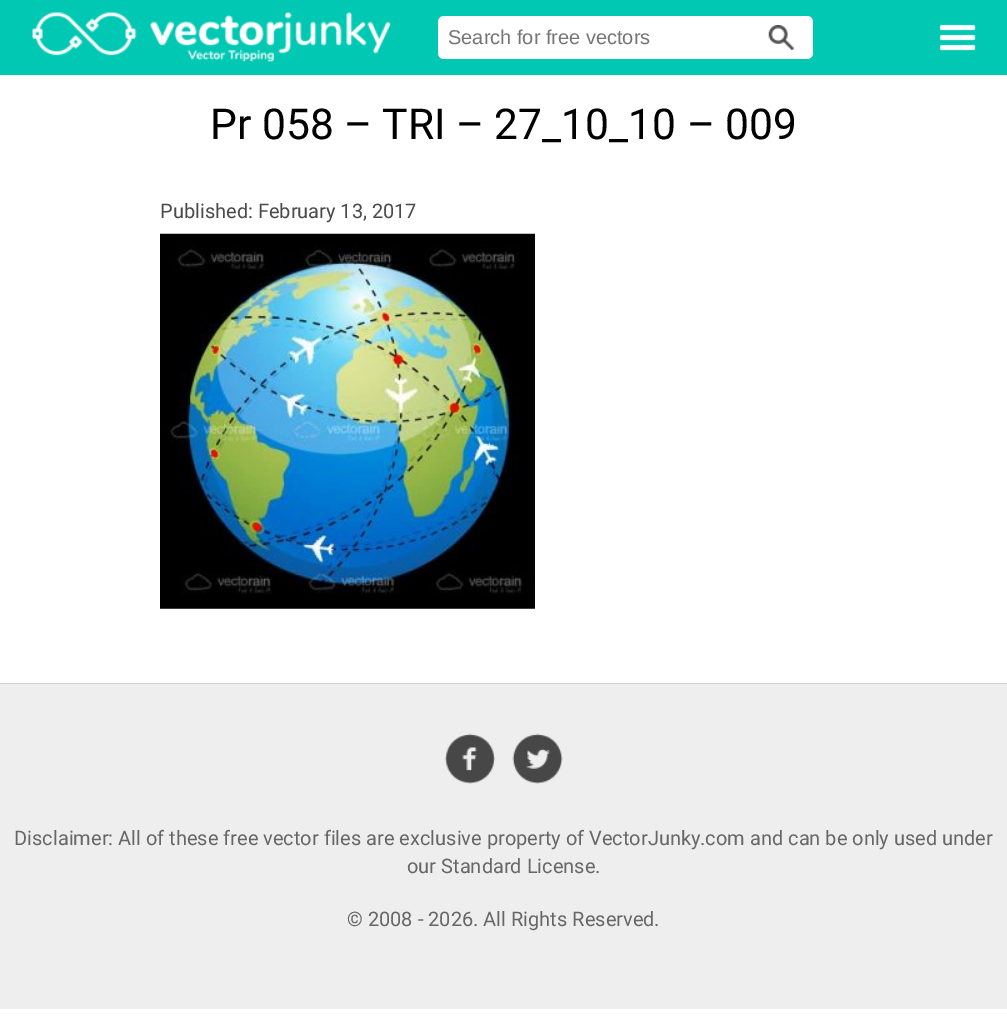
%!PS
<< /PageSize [1007 1033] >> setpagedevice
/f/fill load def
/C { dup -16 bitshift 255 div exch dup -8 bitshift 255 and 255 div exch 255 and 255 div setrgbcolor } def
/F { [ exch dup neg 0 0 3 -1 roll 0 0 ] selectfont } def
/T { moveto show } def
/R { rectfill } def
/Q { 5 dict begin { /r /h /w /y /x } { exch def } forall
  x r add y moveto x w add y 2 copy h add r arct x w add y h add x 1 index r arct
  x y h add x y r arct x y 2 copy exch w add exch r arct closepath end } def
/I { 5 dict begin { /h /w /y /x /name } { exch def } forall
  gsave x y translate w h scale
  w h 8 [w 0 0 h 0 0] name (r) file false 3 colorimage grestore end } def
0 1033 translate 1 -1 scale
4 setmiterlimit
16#FFFFFF C
0 0 1007 1033 R
16#00C8B2 C
0 0 1007 75 R
(1.rgb) 32 12 359 50 I
16#FFFFFF C
438 16 375 43 6 Q f
/LiberationSans-Regular 20 F
16#757575 C
(Search for free vectors) 448 44 T
(2.rgb) 768 25 26 25 I
(3.rgb) 939 24 37 27 I
/Roboto-Regular 42.5 F
16#000000 C
(Pr 058 – TRI – 27_10_10 – 009) 210 139 T
/Roboto-Regular 20 F
16#4A4A4A C
(Published: February 13, 2017) 160 218 T
(4.rgb) 160 233 375 376 I
16#EEEEEE C
0 684 1007 325 R
16#D2D2D2 C
0 683 1007 1 R
(5.rgb) 445 733 50 51 I
(6.rgb) 512 733 51 51 I
16#676767 C
(Disclaimer: All of these free vector files are exclusive property of VectorJunky.com and can be only used under) 14 845 T
(our Standard License.) 407 873 T
(© 2008 - 2026. All Rights Reserved.) 347 926 T
showpage
